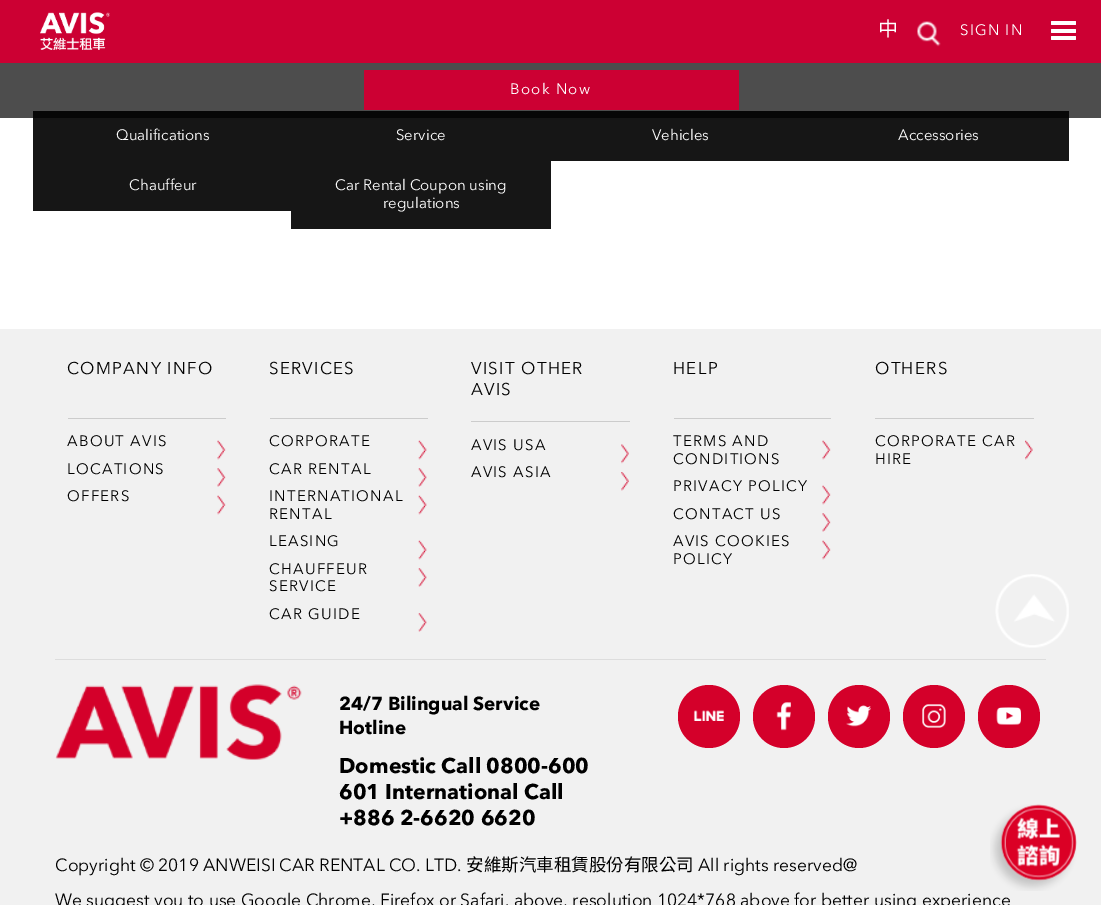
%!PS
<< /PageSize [1101 905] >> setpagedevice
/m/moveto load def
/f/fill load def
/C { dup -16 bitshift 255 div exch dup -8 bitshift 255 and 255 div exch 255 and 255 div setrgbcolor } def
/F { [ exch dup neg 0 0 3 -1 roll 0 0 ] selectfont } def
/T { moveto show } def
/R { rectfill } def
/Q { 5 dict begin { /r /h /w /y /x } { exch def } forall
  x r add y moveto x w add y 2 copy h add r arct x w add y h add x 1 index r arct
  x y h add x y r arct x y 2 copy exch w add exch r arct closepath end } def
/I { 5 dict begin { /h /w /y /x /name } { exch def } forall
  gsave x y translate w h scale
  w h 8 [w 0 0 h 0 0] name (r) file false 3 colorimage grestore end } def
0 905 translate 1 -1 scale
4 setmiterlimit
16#4D4D4D C
0 0 1101 905 R
16#CC0033 C
0 0 1101 63 R
(1.rgb) 40 12 70 38 I
/NotoSansCJKTC-Regular 20 F
16#FFFFFF C
878 36 m 1.25 0 (中) ashow
(2.rgb) 917 21 24 26 I
/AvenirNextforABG-Regular 15 F
960 35 m 1.25 0 (SIGN IN) ashow
1051 21 25 4 1 Q f
1051 29 25 4 1 Q f
1051 36 25 4 1 Q f
16#CC0033 C
364 70 375 40 R
16#FFFFFF C
510 94 m 1.25 0 (Book Now) ashow
0 118 1101 211 R
16#161616 C
33 118 1036 43 R
16#070707 C
33 111 1036 7 R
16#FFFFFF C
(Qualifications) 116 140 T
(Service) 396 140 T
(Vehicles) 652 140 T
(Accessories) 898 140 T
16#161616 C
33 161 258 50 R
16#FFFFFF C
(Chauffeur) 129 190 T
16#161616 C
291 161 260 68 R
16#FFFFFF C
(Car Rental Coupon using) 335 190 T
(regulations) 383 208 T
16#F1F1F1 C
0 329 1101 576 R
16#CCCCCC C
68 418 158 1 R
/AvenirNextforABG-Regular 16.9 F
16#000000 C
67 374 m 1.25 0 (COMPANY INFO) ashow
/AvenirNextforABG-Regular 15 F
67 446 m 1.25 0 (ABOUT AVIS) ashow
(3.rgb) 217 440 9 20 I
67 474 m 1.25 0 (LOCATIONS) ashow
(4.rgb) 217 468 9 19 I
67 501 m 1.25 0 (OFFERS) ashow
(3.rgb) 217 495 9 20 I
16#CCCCCC C
270 418 158 1 R
/AvenirNextforABG-Regular 16.9 F
16#000000 C
269 374 m 1.25 0 (SERVICES) ashow
/AvenirNextforABG-Regular 15 F
269 446 m 1.25 0 (CORPORATE) ashow
(5.rgb) 418 440 9 20 I
269 474 m 1.25 0 (CAR RENTAL) ashow
(6.rgb) 418 468 9 19 I
269 501 m 1.25 0 (INTERNATIONAL) ashow
(5.rgb) 418 495 9 20 I
269 519 m 1.25 0 (RENTAL) ashow
269 546 m 1.25 0 (LEASING) ashow
(5.rgb) 418 540 9 20 I
269 574 m 1.25 0 (CHAUFFEUR) ashow
(6.rgb) 418 568 9 19 I
269 591 m 1.25 0 (SERVICE) ashow
269 619 m 1.25 0 (CAR GUIDE) ashow
(6.rgb) 418 613 9 19 I
16#CCCCCC C
471 421 159 1 R
/AvenirNextforABG-Regular 16.9 F
16#000000 C
471 374 m 1.25 0 (VISIT OTHER) ashow
471 395 m 1.25 0 (AVIS) ashow
/AvenirNextforABG-Regular 15 F
471 450 m 1.25 0 (AVIS USA) ashow
(7.rgb) 621 444 8 20 I
471 477 m 1.25 0 (AVIS ASIA) ashow
(8.rgb) 621 472 8 19 I
16#CCCCCC C
674 418 157 1 R
/AvenirNextforABG-Regular 16.9 F
16#000000 C
673 374 m 1.25 0 (HELP) ashow
/AvenirNextforABG-Regular 15 F
673 446 m 1.25 0 (TERMS AND) ashow
(9.rgb) 822 440 9 20 I
673 464 m 1.25 0 (CONDITIONS) ashow
673 491 m 1.25 0 (PRIVACY POLICY) ashow
(9.rgb) 822 485 9 20 I
673 519 m 1.25 0 (CONTACT US) ashow
(10.rgb) 822 513 9 19 I
673 546 m 1.25 0 (AVIS COOKIES) ashow
(9.rgb) 822 540 9 20 I
673 564 m 1.25 0 (POLICY) ashow
16#CCCCCC C
875 418 159 1 R
/AvenirNextforABG-Regular 16.9 F
16#000000 C
875 374 m 1.25 0 (OTHERS) ashow
/AvenirNextforABG-Regular 15 F
875 446 m 1.25 0 (CORPORATE CAR) ashow
(11.rgb) 1025 440 8 20 I
875 464 m 1.25 0 (HIRE) ashow
(12.rgb) 995 574 74 74 I
16#DDDDDD C
55 659 991 1 R
(13.rgb) 55 684 247 76 I
/AvenirNextforABG-Bold 18.75 F
16#000000 C
(24/7 Bilingual Service) 339 710 T
(Hotline) 339 734 T
/AvenirNextforABG-Bold 21.25 F
(Domestic Call 0800-600) 339 773 T
(601 International Call) 339 799 T
(+886 2-6620 6620) 339 825 T
16#D4002A C
678 685 62 63 31 Q f
(14.rgb) 693 710 31 11 I
753 685 62 63 31 Q f
(15.rgb) 776 702 15 29 I
828 685 62 63 31 Q f
(16.rgb) 846 705 25 22 I
903 685 62 63 31 Q f
(17.rgb) 922 704 24 24 I
978 685 62 63 31 Q f
(18.rgb) 996 707 25 18 I
/AvenirNextforABG-Regular 17.5 F
16#000000 C
(Copyright © 2019 ANWEISI CAR RENTAL CO. LTD.) 55 871 T
/NotoSansCJKTC-Regular 17.5 F
(安維斯汽車租賃股份有限公司) 466 871 T
/AvenirNextforABG-Regular 17.5 F
(All rights reserved@) 698 871 T
(We suggest you to use Google Chrome, Firefox or Safari. above, resolution 1024*768 above for better using experience) 55 906 T
(19.rgb) 990 804 87 87 I
showpage
